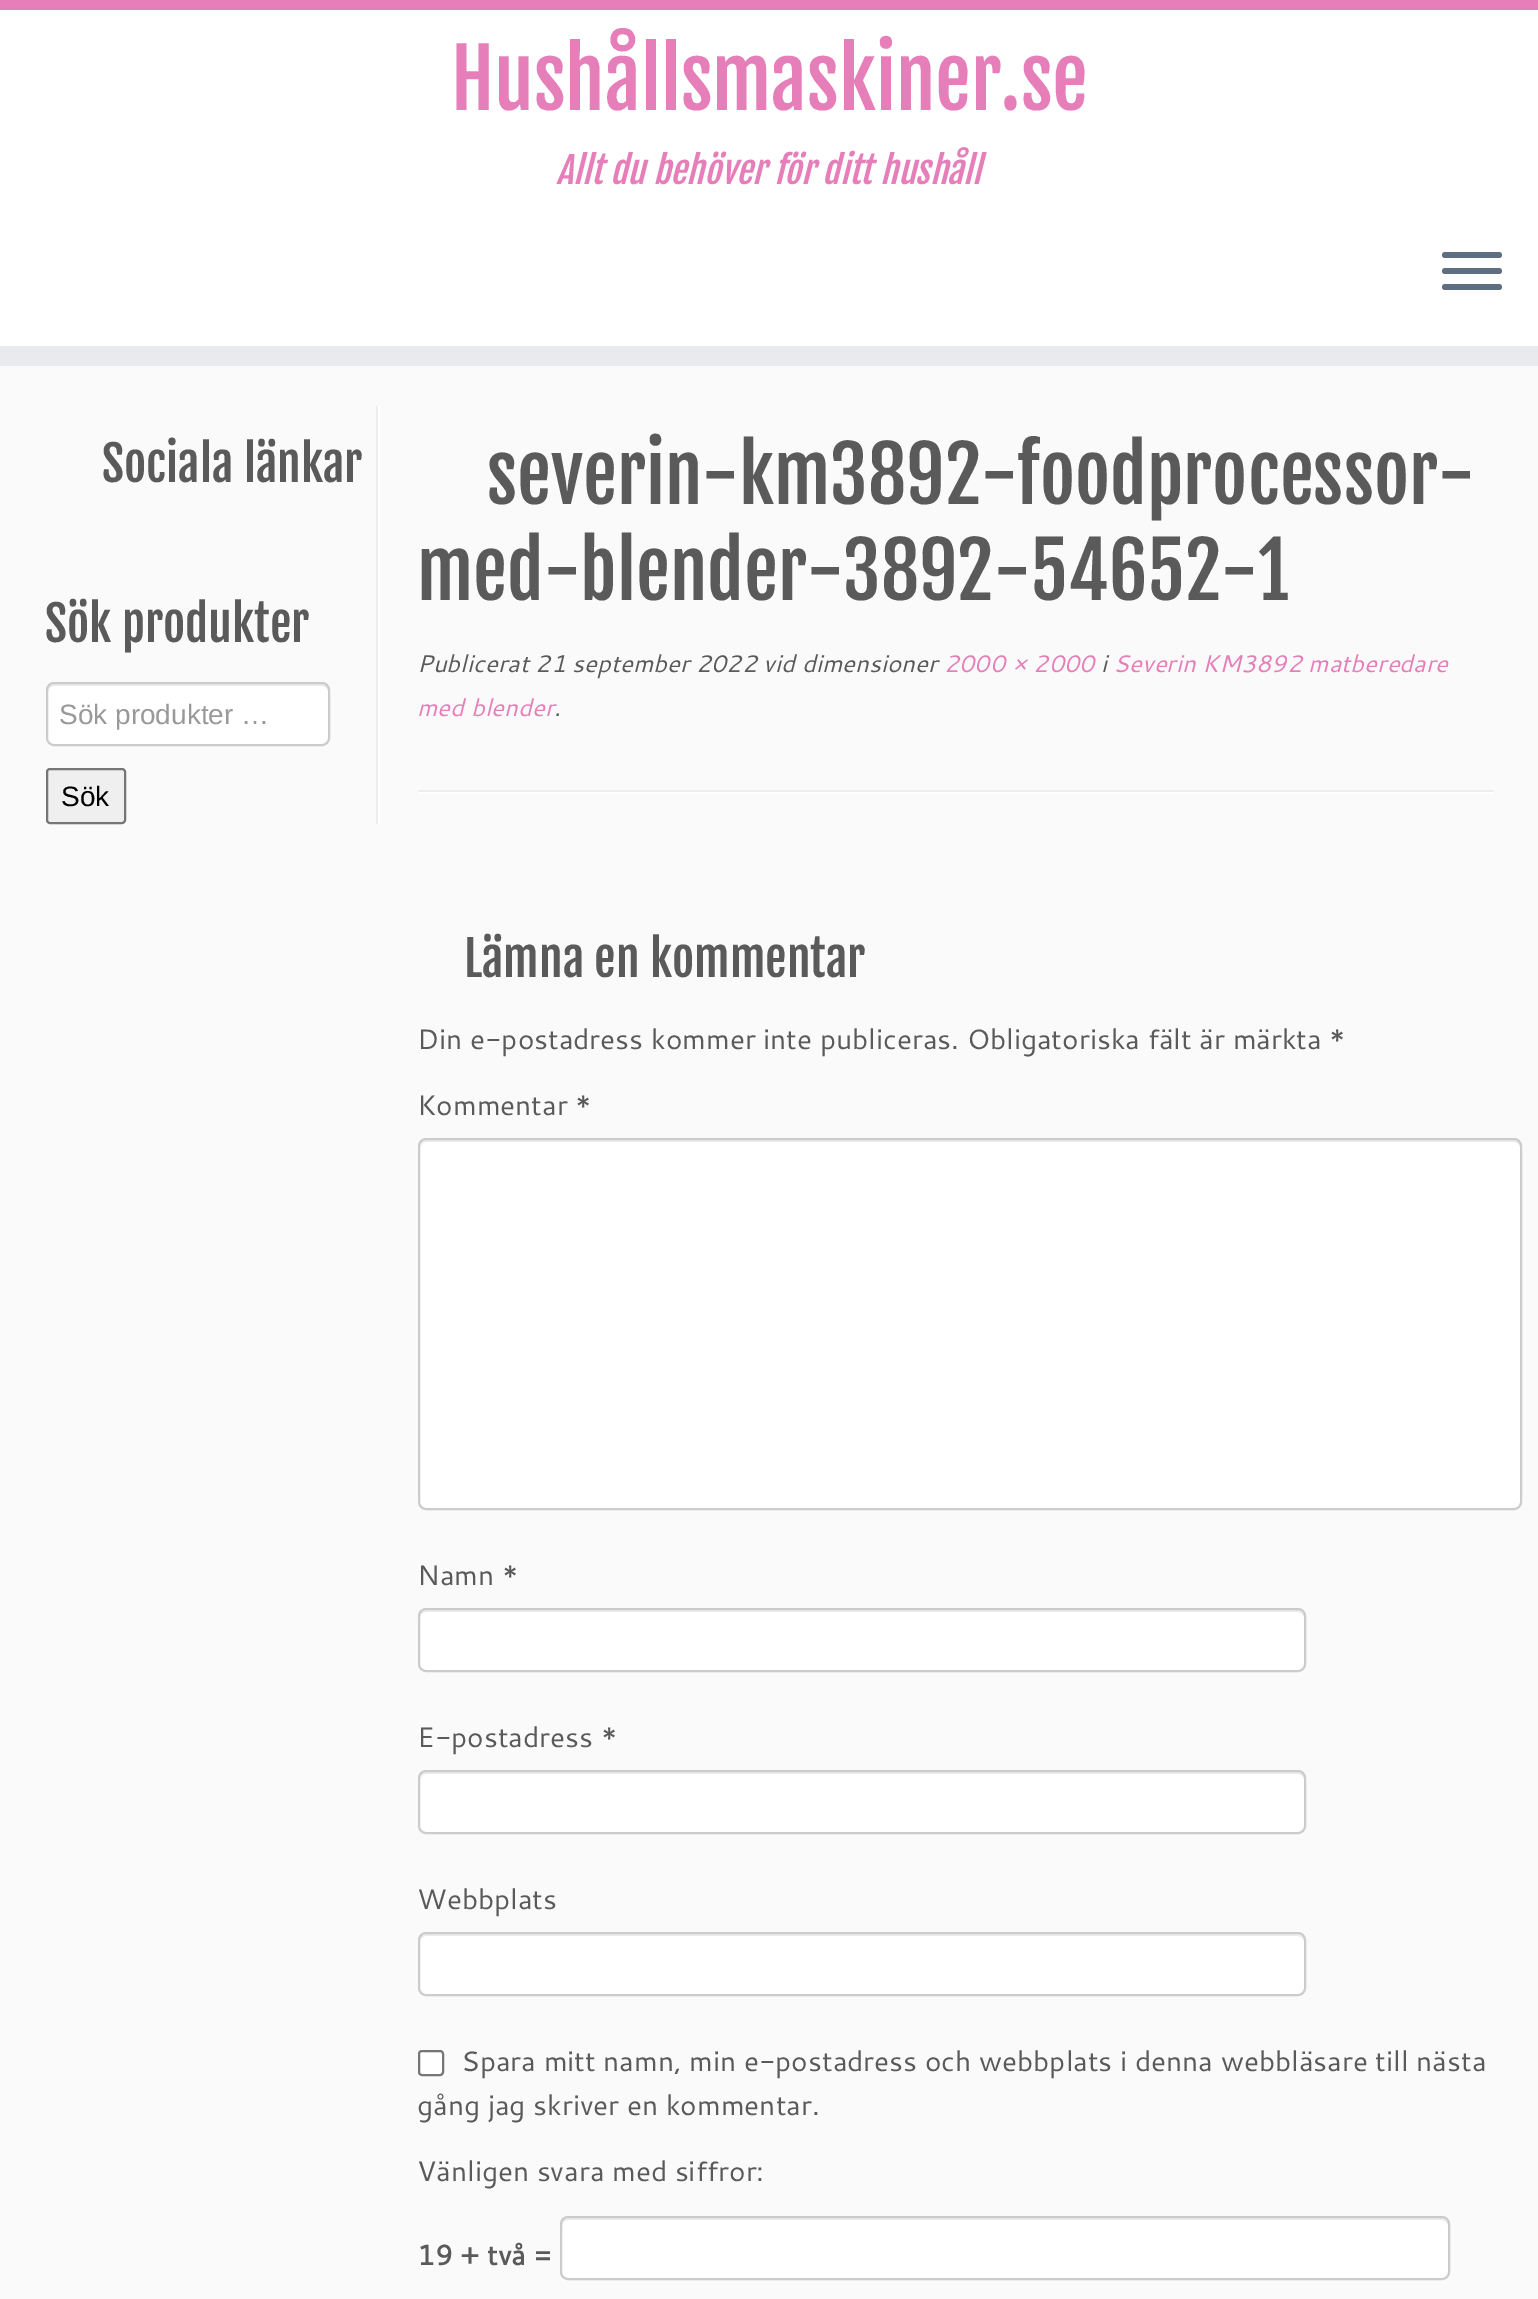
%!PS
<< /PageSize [1538 2299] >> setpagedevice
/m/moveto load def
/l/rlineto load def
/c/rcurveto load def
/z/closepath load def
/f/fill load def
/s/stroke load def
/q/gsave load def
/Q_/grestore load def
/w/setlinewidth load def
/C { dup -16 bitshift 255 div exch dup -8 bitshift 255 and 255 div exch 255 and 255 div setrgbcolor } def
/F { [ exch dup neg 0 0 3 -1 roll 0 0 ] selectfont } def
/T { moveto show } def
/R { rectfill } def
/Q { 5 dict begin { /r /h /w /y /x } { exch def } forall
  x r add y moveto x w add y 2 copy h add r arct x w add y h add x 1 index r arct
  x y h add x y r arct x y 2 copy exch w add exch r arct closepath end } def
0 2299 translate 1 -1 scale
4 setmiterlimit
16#FAFAFA C
0 0 1538 2299 R
16#FFFFFF C
0 10 1538 336 R
16#E67FB9 C
0 0 1538 10 R
16#E9EAEE C
0 346 1538 20 R
/FjallaOne-Regular 80 F
16#E67FB9 C
(Hushållsmaskiner.se) 451 110 T
/FjallaOne-Italic 36 F
(Allt du behöver för ditt hushåll) 556 184 T
16#5F6F81 C
1442 252 60 6 3 Q f
1442 268 60 6 3 Q f
1442 284 60 6 3 Q f
16#EEEEEE C
376 406 2 418 R
/FjallaOne-Regular 48 F
16#5A5A5A C
(Sociala länkar) 102 482 T
16#FFFFFF C
378 406 2 418 R
16#5A5A5A C
(Sök produkter) 45 642 T
16#FFFFFF C
46 682 284 64 8 Q f
16#ECECEC C
54 686 m 268 0 l 3 0 6 3 6 6 c 0 -2 l 0 -3 -3 -6 -6 -6 c -268 0 l -3 0 -6 3 -6 6 c 0 2 l 0 -3 3 -6 6 -6 c z f
16#CCCCCC C
2 w
47 683 282 62 7 Q s
/LiberationSans-Regular 28 F
16#999999 C
(Sök produkter …) 59 724 T
16#EFEFEF C
47 769 78 54 3 Q q f Q_
16#767676 C
s
16#000000 C
(Sök) 61 806 T
/FjallaOne-Regular 76 F
16#5A5A5A C
(severin-km3892-foodprocessor-) 487 504 T
(med-blender-3892-54652-1) 417 600 T
/Cantarell-Italic 24 F
(Publicerat 21 september 2022 vid dimensioner) 417 672 T
16#E67FB9 C
(2000 × 2000) 944 672 T
16#5A5A5A C
(i) 1101 672 T
16#E67FB9 C
(Severin KM3892 matberedare) 1113 672 T
(med blender) 417 716 T
16#5A5A5A C
(.) 554 716 T
16#EEEEEE C
418 790 1076 2 R
16#FFFFFF C
418 792 1076 2 R
/FjallaOne-Regular 48 F
16#5A5A5A C
(Lämna en kommentar) 464 977 T
/Cantarell-Regular 28 F
(Din e-postadress kommer inte publiceras. Obligatoriska fält är märkta *) 417 1049 T
(Kommentar *) 417 1115 T
16#FFFFFF C
418 1138 1104 372 8 Q f
16#ECECEC C
426 1142 m 1088 0 l 3 0 6 3 6 6 c 0 -2 l 0 -3 -3 -6 -6 -6 c -1088 0 l -3 0 -6 3 -6 6 c 0 2 l 0 -3 3 -6 6 -6 c z f
16#CCCCCC C
419 1139 1102 370 7 Q s
16#5A5A5A C
(Namn *) 417 1585 T
16#FFFFFF C
418 1608 888 64 8 Q f
16#ECECEC C
426 1612 m 872 0 l 3 0 6 3 6 6 c 0 -2 l 0 -3 -3 -6 -6 -6 c -872 0 l -3 0 -6 3 -6 6 c 0 2 l 0 -3 3 -6 6 -6 c z f
16#CCCCCC C
419 1609 886 62 7 Q s
16#5A5A5A C
(E-postadress *) 417 1747 T
16#FFFFFF C
418 1770 888 64 8 Q f
16#ECECEC C
426 1774 m 872 0 l 3 0 6 3 6 6 c 0 -2 l 0 -3 -3 -6 -6 -6 c -872 0 l -3 0 -6 3 -6 6 c 0 2 l 0 -3 3 -6 6 -6 c z f
16#CCCCCC C
419 1771 886 62 7 Q s
16#5A5A5A C
(Webbplats) 417 1909 T
16#FFFFFF C
418 1932 888 64 8 Q f
16#ECECEC C
426 1936 m 872 0 l 3 0 6 3 6 6 c 0 -2 l 0 -3 -3 -6 -6 -6 c -872 0 l -3 0 -6 3 -6 6 c 0 2 l 0 -3 3 -6 6 -6 c z f
16#CCCCCC C
419 1933 886 62 7 Q s
16#FFFFFF C
419 2051 24 24 3 Q q f Q_
16#767676 C
s
16#5A5A5A C
(Spara mitt namn, min e-postadress och webbplats i denna webbläsare till nästa) 461 2071 T
(gång jag skriver en kommentar.) 417 2115 T
(Vänligen svara med siffror:) 417 2181 T
/Cantarell-Bold 28 F
(19 + två =) 417 2265 T
16#FFFFFF C
560 2216 890 64 8 Q f
16#ECECEC C
568 2220 m 874 0 l 3 0 6 3 6 6 c 0 -2 l 0 -3 -3 -6 -6 -6 c -874 0 l -3 0 -6 3 -6 6 c 0 2 l 0 -3 3 -6 6 -6 c z f
16#CCCCCC C
561 2217 888 62 7 Q s
showpage
